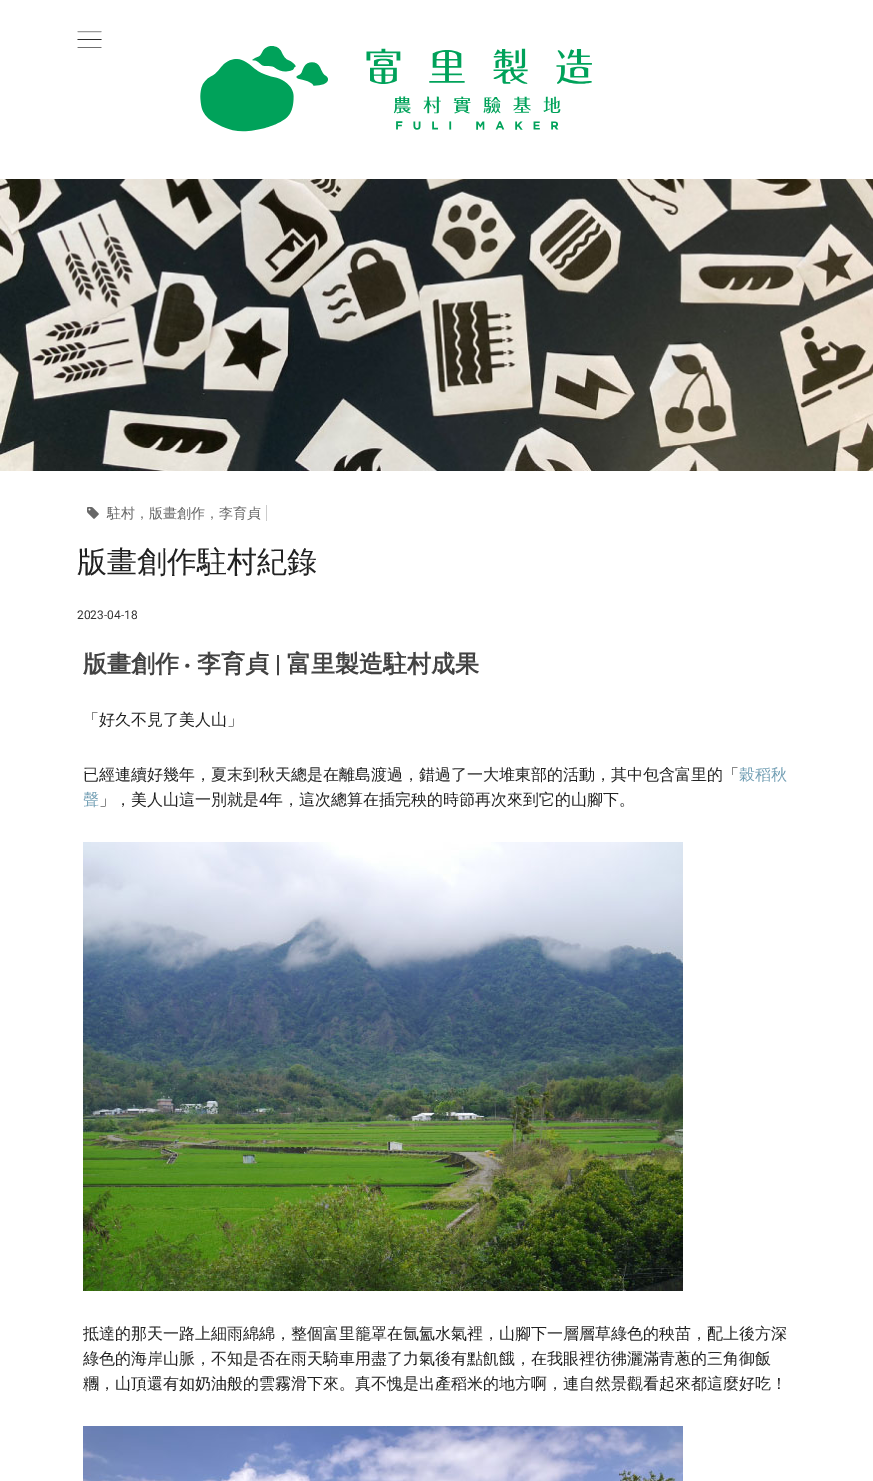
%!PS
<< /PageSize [873 1481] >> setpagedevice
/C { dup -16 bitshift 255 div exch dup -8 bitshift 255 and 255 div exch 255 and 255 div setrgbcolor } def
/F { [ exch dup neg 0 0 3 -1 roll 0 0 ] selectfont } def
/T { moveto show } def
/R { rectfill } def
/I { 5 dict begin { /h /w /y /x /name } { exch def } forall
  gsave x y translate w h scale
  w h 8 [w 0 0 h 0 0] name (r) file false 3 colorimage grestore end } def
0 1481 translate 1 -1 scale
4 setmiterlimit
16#FFFFFF C
0 0 873 1481 R
(1.rgb) 77 31 25 17 I
(2.rgb) 200 46 392 86 I
(3.rgb) 0 179 873 292 I
(4.rgb) 87 507 12 12 I
/WenQuanYiZenHei-Medium 14 F
16#666666 C
(駐村，版畫創作，李育貞) 107 518 T
16#CCCCCC C
266 505 1 16 R
/WenQuanYiZenHei-Medium 30 F
16#222222 C
(版畫創作駐村紀錄) 77 572 T
/Roboto-Regular 12 F
16#333333 C
(2023-04-18) 77 619 T
/WenQuanYiZenHei-Bold 24 F
16#434343 C
(版畫創作) 83 672 T
/NotoSans-Bold 24 F
(‧) 184 672 T
/WenQuanYiZenHei-Bold 24 F
(李育貞) 197 672 T
/Roboto-Bold 24 F
(|) 275 672 T
/WenQuanYiZenHei-Bold 24 F
(富里製造駐村成果) 287 672 T
/WenQuanYiZenHei-Medium 16 F
16#222222 C
(「好久不見了美人山」) 83 725 T
(已經連續好幾年，夏末到秋天總是在離島渡過，錯過了一大堆東部的活動，其中包含富里的「) 83 780 T
16#74A0B5 C
(穀稻秋) 739 780 T
(聲) 83 805 T
16#222222 C
(」，美人山這一別就是) 99 805 T
/Roboto-Regular 16 F
(4) 259 805 T
/WenQuanYiZenHei-Medium 16 F
(年，這次總算在插完秧的時節再次來到它的山腳下。) 267 805 T
(5.rgb) 83 842 600 449 I
(抵達的那天一路上細雨綿綿，整個富里籠罩在氤氳水氣裡，山腳下一層層草綠色的秧苗，配上後方深) 83 1339 T
(綠色的海岸山脈，不知是否在雨天騎車用盡了力氣後有點飢餓，在我眼裡彷彿灑滿青蔥的三角御飯) 83 1364 T
(糰，山頂還有如奶油般的雲霧滑下來。真不愧是出產稻米的地方啊，連自然景觀看起來都這麼好吃！) 83 1389 T
(6.rgb) 83 1426 600 55 I
showpage
